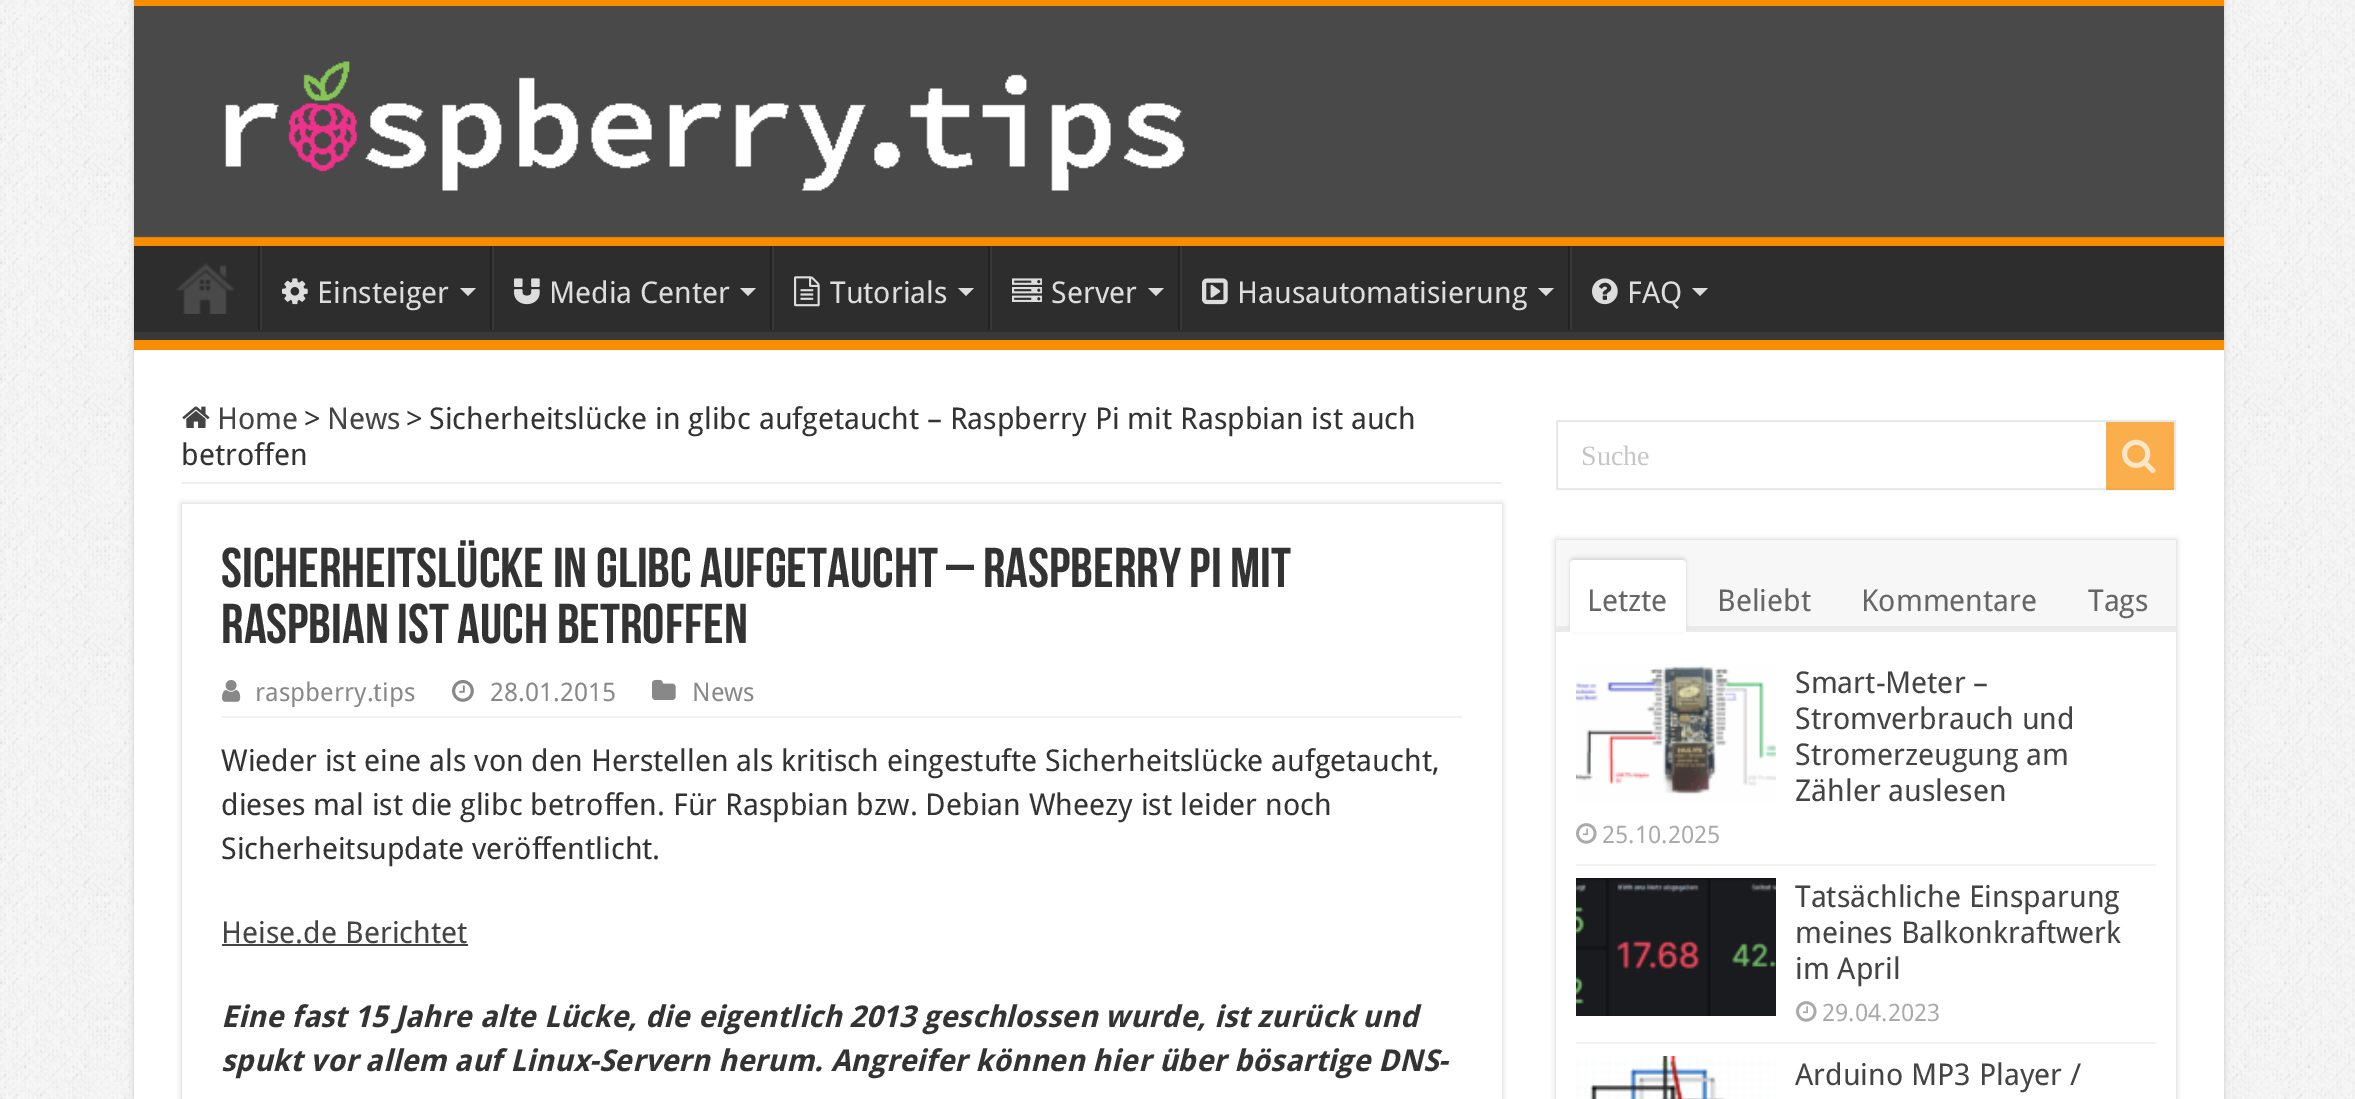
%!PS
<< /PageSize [2355 1099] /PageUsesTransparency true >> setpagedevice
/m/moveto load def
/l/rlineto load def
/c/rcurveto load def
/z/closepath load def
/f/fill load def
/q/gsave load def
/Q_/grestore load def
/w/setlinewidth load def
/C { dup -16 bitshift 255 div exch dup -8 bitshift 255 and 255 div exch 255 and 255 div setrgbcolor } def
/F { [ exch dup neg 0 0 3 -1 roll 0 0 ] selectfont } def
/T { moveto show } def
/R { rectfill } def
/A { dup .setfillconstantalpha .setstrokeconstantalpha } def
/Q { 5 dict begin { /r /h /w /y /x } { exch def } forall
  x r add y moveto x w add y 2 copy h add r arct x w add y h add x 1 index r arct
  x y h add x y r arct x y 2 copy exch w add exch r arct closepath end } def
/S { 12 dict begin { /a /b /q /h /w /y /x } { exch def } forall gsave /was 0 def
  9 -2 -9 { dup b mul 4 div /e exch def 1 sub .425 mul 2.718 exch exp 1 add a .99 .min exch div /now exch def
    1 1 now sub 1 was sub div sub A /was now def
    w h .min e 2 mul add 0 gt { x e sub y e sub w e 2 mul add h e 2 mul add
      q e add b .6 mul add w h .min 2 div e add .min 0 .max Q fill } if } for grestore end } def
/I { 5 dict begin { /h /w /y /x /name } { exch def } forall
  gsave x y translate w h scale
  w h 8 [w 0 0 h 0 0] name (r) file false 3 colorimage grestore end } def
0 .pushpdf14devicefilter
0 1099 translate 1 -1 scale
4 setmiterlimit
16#FFFFFF C
0 0 2355 1099 R
(1.rgb) 0 0 2355 1099 I
16#CACACA C
134 0 2090 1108 0 3 1 S
16#FFFFFF C
134 350 2090 749 R
16#F88D00 C
134 0 2090 6 R
(2.rgb) 134 6 2090 240 I
16#2D2D2D C
134 246 2090 86 R
q
134 246 2090 94 rectclip
16#393939 C
-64 48 m 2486 0 l 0 490 l -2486 0 l z 132 234 m 2090 0 l 1 0 2 1 2 2 c 0 94 l 0 1 -1 2 -2 2 c -2090 0 l -1 0 -2 -1 -2 -2 c 0 -94 l 0 -1 1 -2 2 -2 c z eofill
Q_
16#F88D00 C
134 340 2090 10 R
(3.rgb) 176 263 59 51 I
16#222222 C
258 246 2 84 R
16#383838 C
260 246 2 84 R
(4.rgb) 282 278 26 27 I
/DroidSans-Regular 30 F
16#DDDDDD C
(Einsteiger) 317 303 T
460 288 m 16 0 l -8 8 l z f
16#222222 C
490 246 2 84 R
16#383838 C
492 246 2 84 R
(5.rgb) 514 278 26 27 I
16#DDDDDD C
(Media Center) 549 303 T
740 288 m 16 0 l -8 8 l z f
16#222222 C
770 246 2 84 R
16#383838 C
772 246 2 84 R
(6.rgb) 794 276 26 31 I
16#DDDDDD C
(Tutorials) 830 303 T
958 288 m 16 0 l -8 8 l z f
16#222222 C
988 246 2 84 R
16#383838 C
990 246 2 84 R
(7.rgb) 1012 278 30 24 I
16#DDDDDD C
(Server) 1051 303 T
1148 288 m 16 0 l -8 8 l z f
16#222222 C
1178 246 2 84 R
16#383838 C
1180 246 2 84 R
(8.rgb) 1202 278 26 27 I
16#DDDDDD C
(Hausautomatisierung) 1237 303 T
1538 288 m 16 0 l -8 8 l z f
16#222222 C
1568 246 2 84 R
16#383838 C
1570 246 2 84 R
(9.rgb) 1592 278 26 27 I
16#DDDDDD C
(FAQ) 1627 303 T
1692 288 m 16 0 l -8 8 l z f
16#EEEEEE C
182 482 1320 2 R
(10.rgb) 182 406 28 22 I
16#444444 C
(Home) 217 429 T
16#333333 C
(>) 304 429 T
16#444444 C
(News) 327 429 T
16#333333 C
(>) 406 429 T
(Sicherheitslücke in glibc aufgetaucht – Raspberry Pi mit Raspbian ist auch) 429 429 T
(betroffen) 181 465 T
q
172 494 m 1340 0 l 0 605 l -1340 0 l z 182 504 m 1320 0 l 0 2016 l -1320 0 l z eoclip newpath
16#CACACA C
182 504 1320 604 0 3 1 S
Q_
/BebasNeue-Bold 56 F
(Sicherheitslücke in glibc aufgetaucht – Raspberry Pi mit) 221 587 T
(Raspbian ist auch betroffen) 221 643 T
16#F2F2F2 C
222 716 1240 2 R
(11.rgb) 222 680 19 22 I
/DroidSans-Regular 25.5 F
16#888888 C
(raspberry.tips) 255 701 T
(12.rgb) 452 680 22 22 I
(28.01.2015) 490 701 T
(13.rgb) 652 679 24 21 I
(News) 692 701 T
/DroidSans-Regular 30 F
16#333333 C
(Wieder ist eine als von den Herstellen als kritisch eingestufte Sicherheitslücke aufgetaucht,) 221 771 T
(dieses mal ist die glibc betroffen. Für Raspbian bzw. Debian Wheezy ist leider noch) 221 815 T
(Sicherheitsupdate veröffentlicht.) 221 859 T
16#444444 C
(Heise.de Berichtet) 221 943 T
222 944 246 2 R
/DroidSans-BoldItalic 30 F
16#333333 C
(Eine fast 15 Jahre alte Lücke, die eigentlich 2013 geschlossen wurde, ist zurück und) 221 1027 T
(spukt vor allem auf Linux-Servern herum. Angreifer können hier über bösartige DNS-) 221 1071 T
16#E8E8E8 C
2 w
1557 421 618 68 rectstroke
/LiberationSerif-Regular 28 F
16#C5C5C5 C
(Suche) 1581 465 T
0.7 A
16#F88D00 C
2106 422 68 68 R
1 A
(14.rgb) 2122 439 34 35 I
q
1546 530 m 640 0 l 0 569 l -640 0 l z 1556 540 m 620 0 l 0 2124 l -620 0 l z eoclip newpath
16#CACACA C
1556 540 620 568 0 3 1 S
Q_
16#F7F7F7 C
1556 540 620 86 R
16#EAEAEA C
1556 626 620 6 R
16#D4D4D4 C
1570 558 116 72 4 2 1 S
16#FFFFFF C
1574 560 m 108 0 l 2 0 4 2 4 4 c 0 68 l -116 0 l 0 -68 l 0 -2 2 -4 4 -4 c z f
/DroidSans-Regular 30 F
16#666666 C
(Letzte) 1587 611 T
(Beliebt) 1717 611 T
(Kommentare) 1861 611 T
(Tags) 2088 611 T
16#F2F2F2 C
1576 864 580 2 R
(15.rgb) 1576 664 200 138 I
16#444444 C
(Smart-Meter –) 1795 693 T
(Stromverbrauch und) 1795 729 T
(Stromerzeugung am) 1795 765 T
(Zähler auslesen) 1795 801 T
(16.rgb) 1576 823 21 21 I
/DroidSans-Regular 24 F
16#AAAAAA C
(25.10.2025) 1602 843 T
16#F2F2F2 C
1576 1042 580 2 R
(17.rgb) 1576 878 200 138 I
/DroidSans-Regular 30 F
16#444444 C
(Tatsächliche Einsparung) 1795 907 T
(meines Balkonkraftwerk) 1795 943 T
(im April) 1795 979 T
(16.rgb) 1796 1001 21 21 I
/DroidSans-Regular 24 F
16#AAAAAA C
(29.04.2023) 1822 1021 T
(18.rgb) 1576 1056 200 43 I
/DroidSans-Regular 30 F
16#444444 C
(Arduino MP3 Player /) 1795 1085 T
.poppdf14devicefilter showpage
